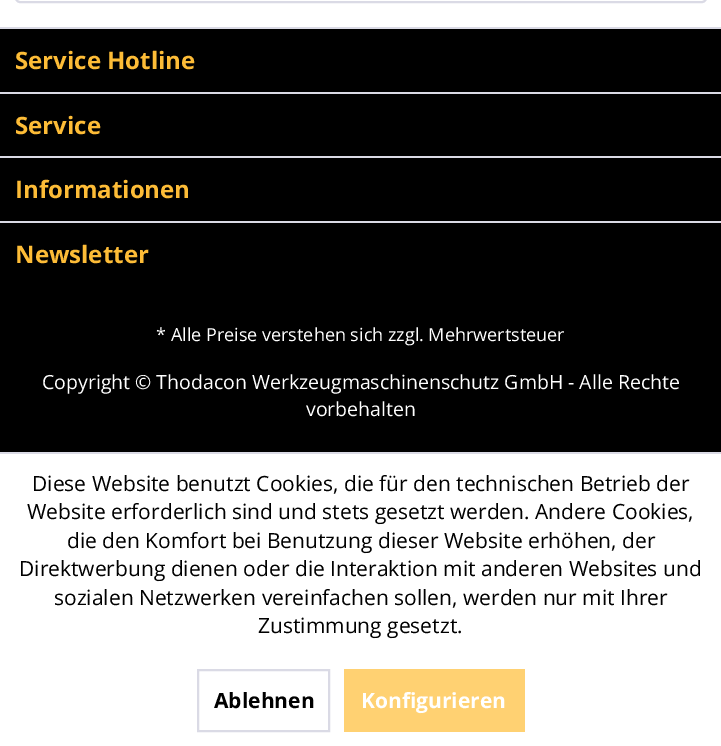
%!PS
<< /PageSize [721 746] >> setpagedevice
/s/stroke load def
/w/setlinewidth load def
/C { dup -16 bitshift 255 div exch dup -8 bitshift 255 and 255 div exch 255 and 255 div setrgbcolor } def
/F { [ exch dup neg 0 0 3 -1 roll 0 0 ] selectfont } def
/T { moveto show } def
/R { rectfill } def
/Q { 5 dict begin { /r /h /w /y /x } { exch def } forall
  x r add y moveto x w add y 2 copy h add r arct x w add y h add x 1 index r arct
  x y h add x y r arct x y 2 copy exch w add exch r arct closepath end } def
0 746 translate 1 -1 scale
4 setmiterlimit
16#FFFFFF C
0 0 721 746 R
16#DADAE5 C
2 w
16 -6 690 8 4 Q s
16#000000 C
0 29 721 423 R
16#DADAE5 C
0 27 721 2 R
/OpenSans-Bold 24 F
16#FDBC37 C
(Service Hotline) 15 69 T
16#DADAE5 C
0 92 721 2 R
16#FDBC37 C
(Service) 15 134 T
16#DADAE5 C
0 156 721 2 R
16#FDBC37 C
(Informationen) 15 198 T
16#DADAE5 C
0 221 721 2 R
16#FDBC37 C
(Newsletter) 15 263 T
/OpenSans-Regular 18 F
16#FFFFFF C
(* Alle Preise verstehen sich zzgl. Mehrwertsteuer) 156 341 T
/OpenSans-Regular 19.5 F
(Copyright © Thodacon Werkzeugmaschinenschutz GmbH - Alle Rechte) 42 389 T
(vorbehalten) 306 416 T
16#DADAE5 C
0 452 721 2 R
/OpenSans-Regular 21 F
16#000000 C
(Diese Website benutzt Cookies, die für den technischen Betrieb der) 32 491 T
(Website erforderlich sind und stets gesetzt werden. Andere Cookies,) 27 519 T
(die den Komfort bei Benutzung dieser Website erhöhen, der) 67 548 T
(Direktwerbung dienen oder die Interaktion mit anderen Websites und) 19 576 T
(sozialen Netzwerken vereinfachen sollen, werden nur mit Ihrer) 54 605 T
(Zustimmung gesetzt.) 258 633 T
16#DADAE5 C
198 670 131 61 rectstroke
/OpenSans-Bold 21 F
16#000000 C
(Ablehnen) 214 708 T
16#FFD172 C
344 669 181 63 R
16#FFFFFF C
(Konfigurieren) 361 708 T
showpage
